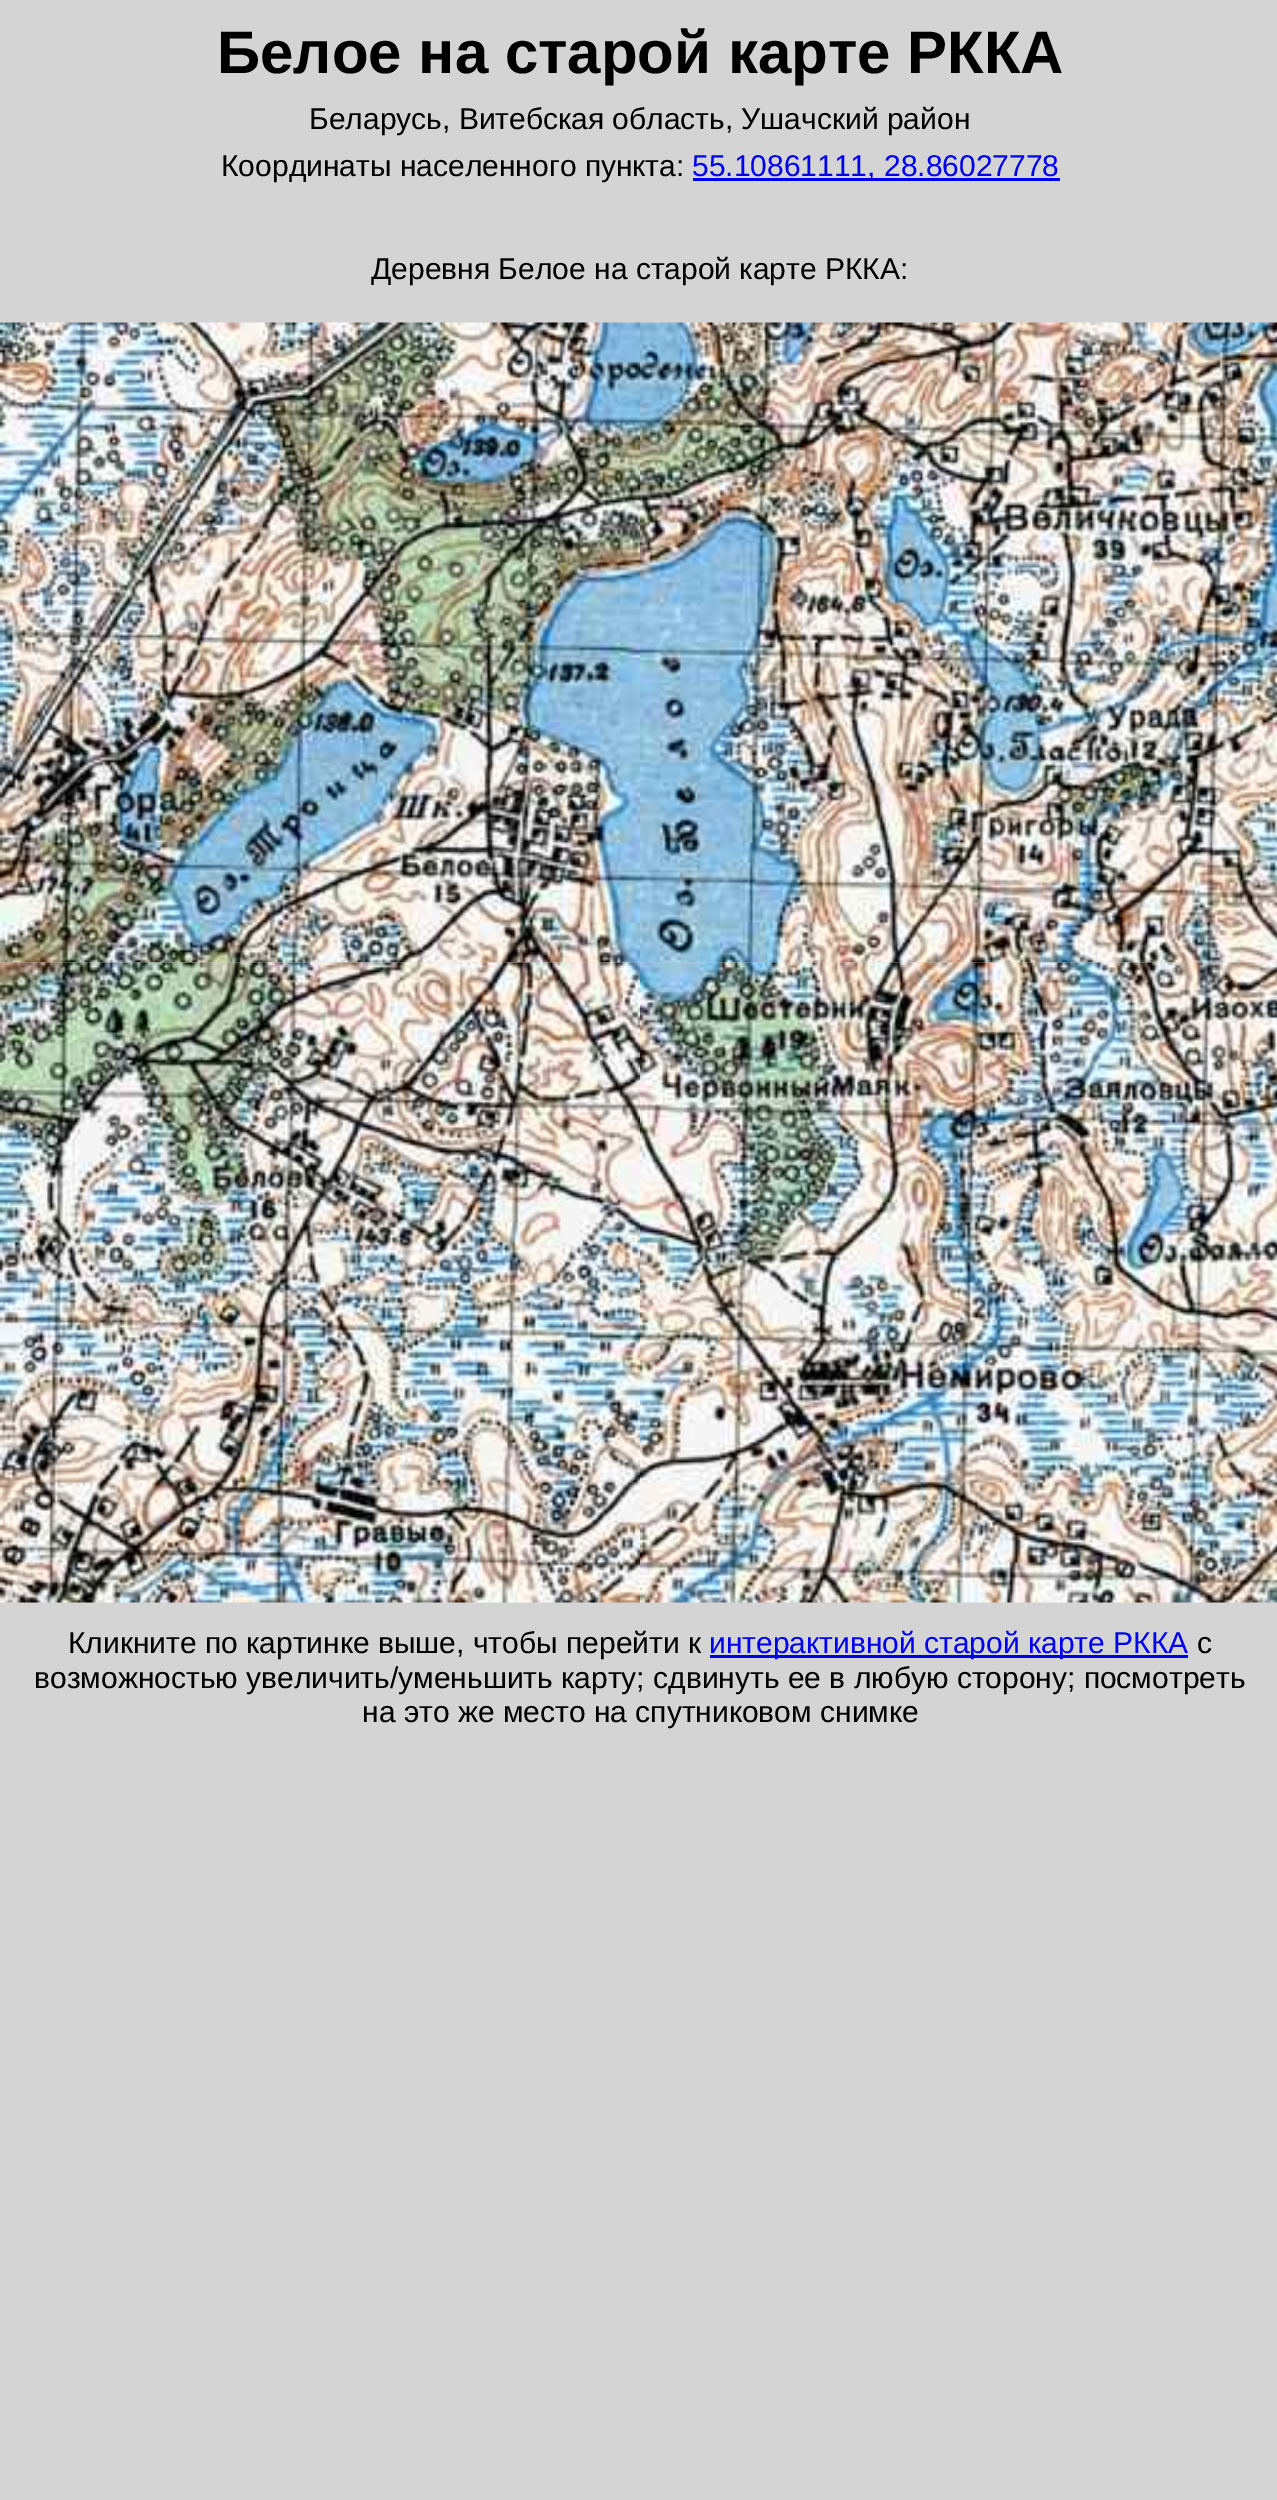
%!PS
<< /PageSize [1277 2500] >> setpagedevice
/C { dup -16 bitshift 255 div exch dup -8 bitshift 255 and 255 div exch 255 and 255 div setrgbcolor } def
/F { [ exch dup neg 0 0 3 -1 roll 0 0 ] selectfont } def
/T { moveto show } def
/R { rectfill } def
/I { 5 dict begin { /h /w /y /x /name } { exch def } forall
  gsave x y translate w h scale
  w h 8 [w 0 0 h 0 0] name (r) file false 3 colorimage grestore end } def
0 2500 translate 1 -1 scale
4 setmiterlimit
16#D4D4D4 C
0 0 1277 2500 R
/LiberationSans-Bold 60 F
16#000000 C
(Белое на старой карте РККА) 217 73 T
/LiberationSans-Regular 30 F
(Беларусь, Витебская область, Ушачский район) 309 129 T
(Координаты населенного пункта:) 221 176 T
16#0000EE C
693 178 367 3 R
(55.10861111, 28.86027778) 692 176 T
16#000000 C
(Деревня Белое на старой карте РККА:) 371 279 T
(1.rgb) 0 322 640 641 I
(2.rgb) 640 322 637 641 I
(3.rgb) 0 962 640 641 I
(4.rgb) 640 962 637 641 I
(Кликните по картинке выше, чтобы перейти к) 68 1653 T
16#0000EE C
710 1655 478 3 R
(интерактивной старой карте РККА) 709 1653 T
16#000000 C
(с) 1197 1653 T
(возможностью увеличить/уменьшить карту; сдвинуть ее в любую сторону; посмотреть) 34 1688 T
(на это же место на спутниковом снимке) 362 1722 T
showpage
